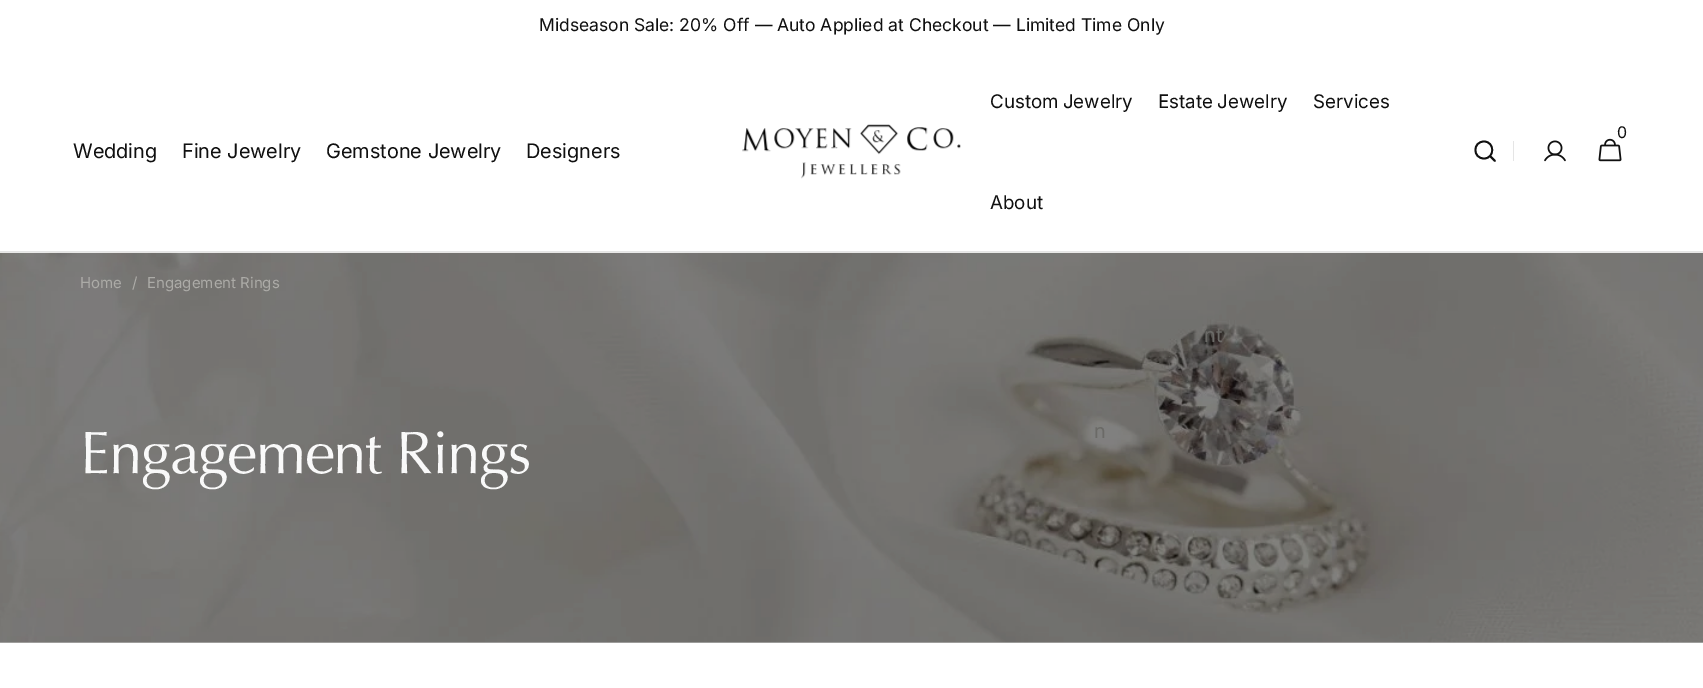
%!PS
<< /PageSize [1703 688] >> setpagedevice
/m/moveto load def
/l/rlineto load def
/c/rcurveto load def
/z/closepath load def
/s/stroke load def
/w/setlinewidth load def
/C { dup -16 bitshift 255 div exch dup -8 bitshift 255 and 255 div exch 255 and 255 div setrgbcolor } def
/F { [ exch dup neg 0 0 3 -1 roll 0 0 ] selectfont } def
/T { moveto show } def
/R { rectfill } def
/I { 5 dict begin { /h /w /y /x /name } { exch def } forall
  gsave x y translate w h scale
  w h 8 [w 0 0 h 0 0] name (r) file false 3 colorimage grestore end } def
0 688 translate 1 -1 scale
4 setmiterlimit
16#FFFFFF C
0 0 1703 688 R
/Inter-Regular 17.5 F
16#101010 C
(Midseason Sale: 20% Off — Auto Applied at Checkout — Limited Time Only) 539 31 T
/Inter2-Regular 20 F
(Wedding) 73 158 T
(Fine Jewelry) 182 158 T
(Gemstone Jewelry) 326 158 T
(Designers) 526 158 T
(1.rgb) 742 124 219 55 I
/Inter-Regular 18.75 F
990 108 m -1 0 32 (Custom Jewelry) widthshow
1158 108 m -1 0 32 (Estate Jewelry) widthshow
(Services) 1313 108 T
(About) 990 209 T
16#ABABA9 C
0 642 1703 1 R
(4.rgb) 0 252 1703 391 I
/Inter2-Regular 20 F
16#6B6A67 C
(nt) 1204 342 T
(n) 1094 438 T
(2.rgb) 1598 138 24 24 I
/Inter-Regular 16 F
16#101010 C
(0) 1617 138 T
1.8 w
1 setlinecap
1 setlinejoin
1484 158.5 m 11 0 11 -17 0 -17 c -11.5 0 -11.5 17 0 17 c z 1490 156 m 5 5 l s
16#E5E5E5 C
1513 141 1 20 R
(3.rgb) 1544 140 22 22 I
0 251 1703 1 R
/Inter-Regular 15 F
16#ACABA7 C
(Home) 80 288 T
(/) 132 288 T
(Engagement Rings) 147 288 T
/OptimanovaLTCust-Regular 60 F
16#F9F9F9 C
80 473 m -1.25 0 (Engagement Rings) ashow
showpage
